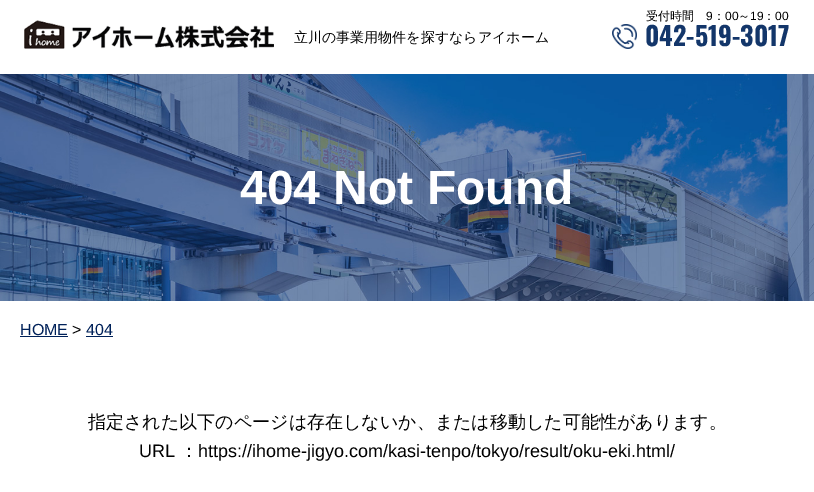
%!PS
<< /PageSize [814 492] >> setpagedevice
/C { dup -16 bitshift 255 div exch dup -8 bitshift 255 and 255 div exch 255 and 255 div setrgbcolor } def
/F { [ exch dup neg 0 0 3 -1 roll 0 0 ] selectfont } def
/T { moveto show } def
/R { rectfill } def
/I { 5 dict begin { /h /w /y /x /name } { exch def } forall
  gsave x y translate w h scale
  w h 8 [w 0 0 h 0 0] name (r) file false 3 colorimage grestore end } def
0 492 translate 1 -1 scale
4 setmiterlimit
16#FFFFFF C
0 0 814 492 R
(1.rgb) 24 20 250 29 I
/WenQuanYiZenHei-Medium 14 F
16#000000 C
(立川の事業用物件を探すならアイホーム) 294 42 T
(2.rgb) 612 24 25 25 I
/WenQuanYiZenHei-Medium 12 F
(受付時間) 646 20 T
/LiberationSans-Regular 12 F
(9) 706 20 T
/WenQuanYiZenHei-Medium 12 F
(：) 713 20 T
/LiberationSans-Regular 12 F
(00) 725 20 T
/WenQuanYiZenHei-Medium 12 F
(～) 738 20 T
/LiberationSans-Regular 12 F
(19) 750 20 T
/WenQuanYiZenHei-Medium 12 F
(：) 763 20 T
/LiberationSans-Regular 12 F
(00) 775 20 T
/Oswald-Bold 26 F
16#13366A C
(042-519-3017) 645 46 T
(3.rgb) 0 74 814 227 I
/LiberationSans-Bold 48 F
16#FFFFFF C
(404 Not Found) 240 204 T
/LiberationSans-Regular 16 F
16#002159 C
(HOME) 20 335 T
20 336 48 1 R
16#000000 C
(>) 72 335 T
16#002159 C
(404) 86 335 T
86 336 27 1 R
/WenQuanYiZenHei-Medium 18 F
16#000000 C
(指定された以下のページは存在しないか、または移動した可能性があります。) 88 428 T
/LiberationSans-Regular 18 F
(URL) 139 457 T
/WenQuanYiZenHei-Medium 18 F
(：) 180 457 T
/LiberationSans-Regular 18 F
(https://ihome-jigyo.com/kasi-tenpo/tokyo/result/oku-eki.html/) 198 457 T
showpage
